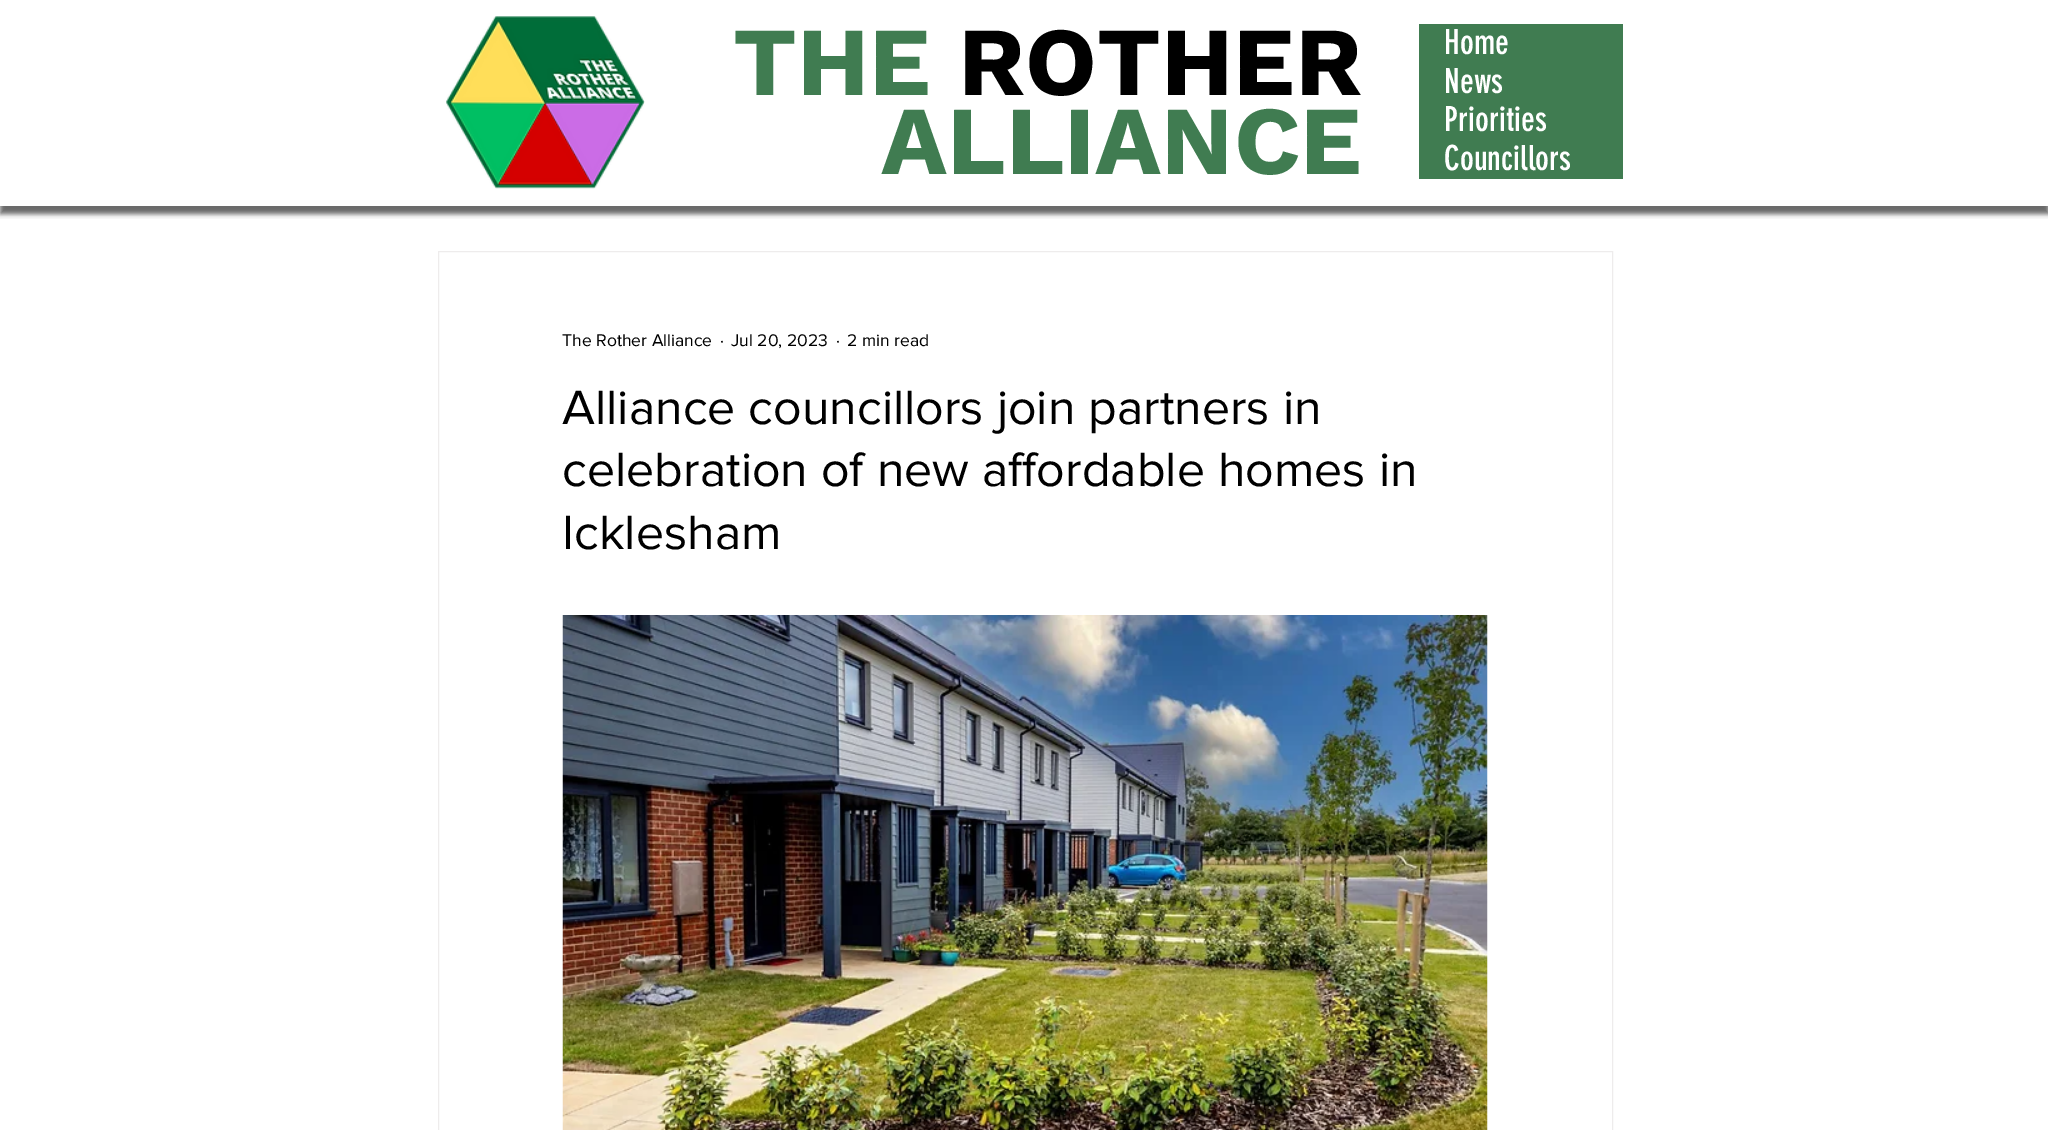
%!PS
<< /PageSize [2048 1130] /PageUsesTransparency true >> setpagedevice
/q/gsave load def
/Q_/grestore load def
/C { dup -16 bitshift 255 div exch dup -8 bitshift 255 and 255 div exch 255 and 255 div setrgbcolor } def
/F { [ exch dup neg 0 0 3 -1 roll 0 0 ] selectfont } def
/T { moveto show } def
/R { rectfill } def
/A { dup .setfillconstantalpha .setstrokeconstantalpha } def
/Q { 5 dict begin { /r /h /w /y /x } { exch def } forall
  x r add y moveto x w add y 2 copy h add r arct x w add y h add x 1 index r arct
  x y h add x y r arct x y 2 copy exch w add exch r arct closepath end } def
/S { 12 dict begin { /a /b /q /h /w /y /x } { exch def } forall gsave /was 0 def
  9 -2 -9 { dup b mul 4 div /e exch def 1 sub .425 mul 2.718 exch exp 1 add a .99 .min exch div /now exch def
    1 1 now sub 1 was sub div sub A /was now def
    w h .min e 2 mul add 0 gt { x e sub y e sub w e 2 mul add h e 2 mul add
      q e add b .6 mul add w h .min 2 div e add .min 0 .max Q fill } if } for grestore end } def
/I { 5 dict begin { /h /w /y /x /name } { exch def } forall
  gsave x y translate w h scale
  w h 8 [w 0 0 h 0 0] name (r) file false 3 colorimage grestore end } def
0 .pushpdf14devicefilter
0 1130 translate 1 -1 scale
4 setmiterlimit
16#FFFFFF C
0 0 2048 1130 R
q
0 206 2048 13 rectclip
16#000000 C
0 8 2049 206 0 2.5 .6 S
Q_
(1.rgb) 446 16 199 173 I
/WorkSans-Bold 97.5 F
16#407C51 C
(THE) 733 95 T
16#000000 C
(ROTHER) 958 95 T
16#407C51 C
(ALLIANCE) 881 174 T
1419 24 204 155 R
/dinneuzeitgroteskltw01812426-Regular 34 F
16#FFFFFF C
(Home) 1444 54 T
(News) 1444 93 T
(Priorities) 1444 131 T
(Councillors) 1444 170 T
16#EEECEC C
438.5 251.5 1174 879 rectstroke
/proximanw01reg-Regular 17.5 F
16#000000 C
(The Rother Alliance) 562 346 T
(·) 720 346 T
(Jul 20, 2023) 731 346 T
(·) 836 346 T
(2 min read) 847 346 T
/proximanw01reg-Regular 50 F
(Alliance councillors join partners in) 562 424 T
(celebration of new affordable homes in) 562 486 T
(Icklesham) 562 549 T
(2.rgb) 562 615 926 515 I
.poppdf14devicefilter showpage
